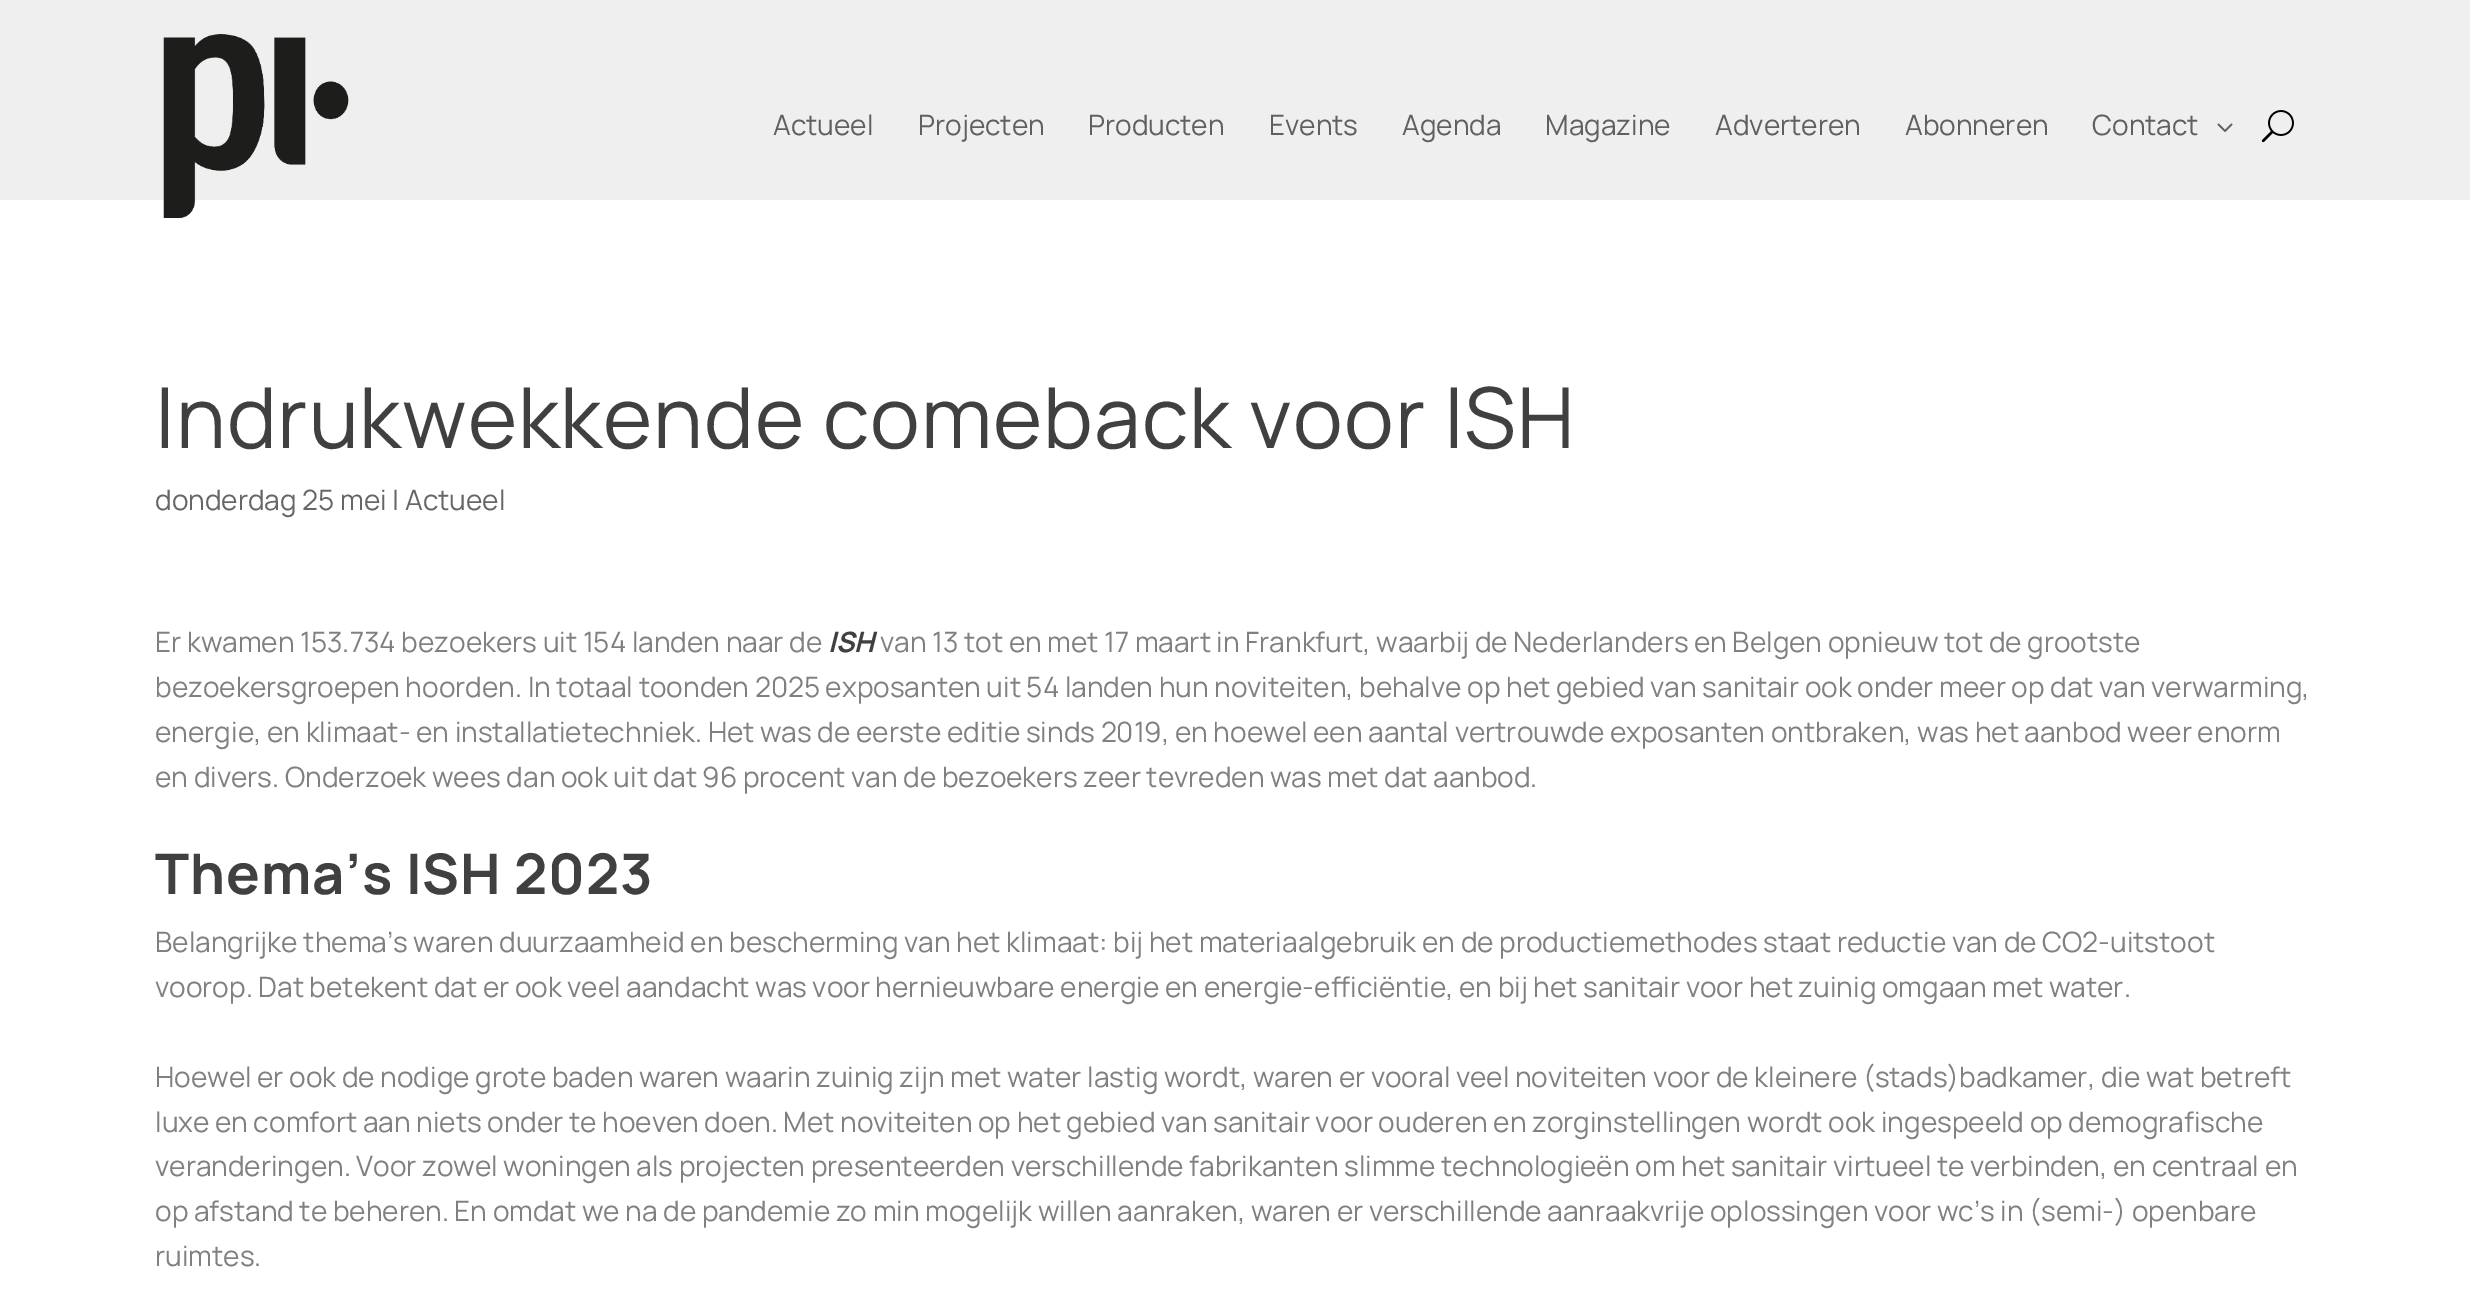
%!PS
<< /PageSize [2470 1291] >> setpagedevice
/m/moveto load def
/C { dup -16 bitshift 255 div exch dup -8 bitshift 255 and 255 div exch 255 and 255 div setrgbcolor } def
/F { [ exch dup neg 0 0 3 -1 roll 0 0 ] selectfont } def
/T { moveto show } def
/R { rectfill } def
/I { 5 dict begin { /h /w /y /x /name } { exch def } forall
  gsave x y translate w h scale
  w h 8 [w 0 0 h 0 0] name (r) file false 3 colorimage grestore end } def
0 1291 translate 1 -1 scale
4 setmiterlimit
16#FFFFFF C
0 0 2470 1291 R
16#EFEFEF C
0 0 2470 200 R
(1.rgb) 163 34 186 184 I
/Manrope-Regular 28 F
16#606060 C
(Actueel) 773 135 T
(Projecten) 918 135 T
(Producten) 1088 135 T
(Events) 1269 135 T
(Agenda) 1402 135 T
(Magazine) 1545 135 T
(Adverteren) 1715 135 T
(Abonneren) 1905 135 T
(Contact) 2092 135 T
(2.rgb) 2217 123 16 9 I
(3.rgb) 2261 110 33 33 I
/Manrope-Regular 84 F
16#404040 C
155 448 m 1 0 (Indrukwekkende comeback voor ISH) ashow
/Manrope-Regular 28 F
16#666666 C
(donderdag 25 mei | Actueel) 155 510 T
16#808080 C
(Er kwamen 153.734 bezoekers uit 154 landen naar de) 155 652 T
/Manrope-BoldItalic 28 F
16#404040 C
(ISH) 828 652 T
/Manrope-Regular 28 F
16#808080 C
(van 13 tot en met 17 maart in Frankfurt, waarbij de Nederlanders en Belgen opnieuw tot de grootste) 880 652 T
(bezoekersgroepen hoorden. In totaal toonden 2025 exposanten uit 54 landen hun noviteiten, behalve op het gebied van sanitair ook onder meer op dat van verwarming,) 155 697 T
(energie, en klimaat- en installatietechniek. Het was de eerste editie sinds 2019, en hoewel een aantal vertrouwde exposanten ontbraken, was het aanbod weer enorm) 155 742 T
(en divers. Onderzoek wees dan ook uit dat 96 procent van de bezoekers zeer tevreden was met dat aanbod.) 155 787 T
/Manrope-Bold 56 F
16#404040 C
155 894 m 1 0 (Thema’s ISH 2023) ashow
/Manrope-Regular 28 F
16#808080 C
(Belangrijke thema’s waren duurzaamheid en bescherming van het klimaat: bij het materiaalgebruik en de productiemethodes staat reductie van de CO2-uitstoot) 155 952 T
(voorop. Dat betekent dat er ook veel aandacht was voor hernieuwbare energie en energie-efficiëntie, en bij het sanitair voor het zuinig omgaan met water.) 155 997 T
(Hoewel er ook de nodige grote baden waren waarin zuinig zijn met water lastig wordt, waren er vooral veel noviteiten voor de kleinere \(stads\)badkamer, die wat betreft) 155 1087 T
(luxe en comfort aan niets onder te hoeven doen. Met noviteiten op het gebied van sanitair voor ouderen en zorginstellingen wordt ook ingespeeld op demografische) 155 1132 T
(veranderingen. Voor zowel woningen als projecten presenteerden verschillende fabrikanten slimme technologieën om het sanitair virtueel te verbinden, en centraal en) 155 1176 T
(op afstand te beheren. En omdat we na de pandemie zo min mogelijk willen aanraken, waren er verschillende aanraakvrije oplossingen voor wc’s in \(semi-\) openbare) 155 1221 T
(ruimtes.) 155 1266 T
showpage
